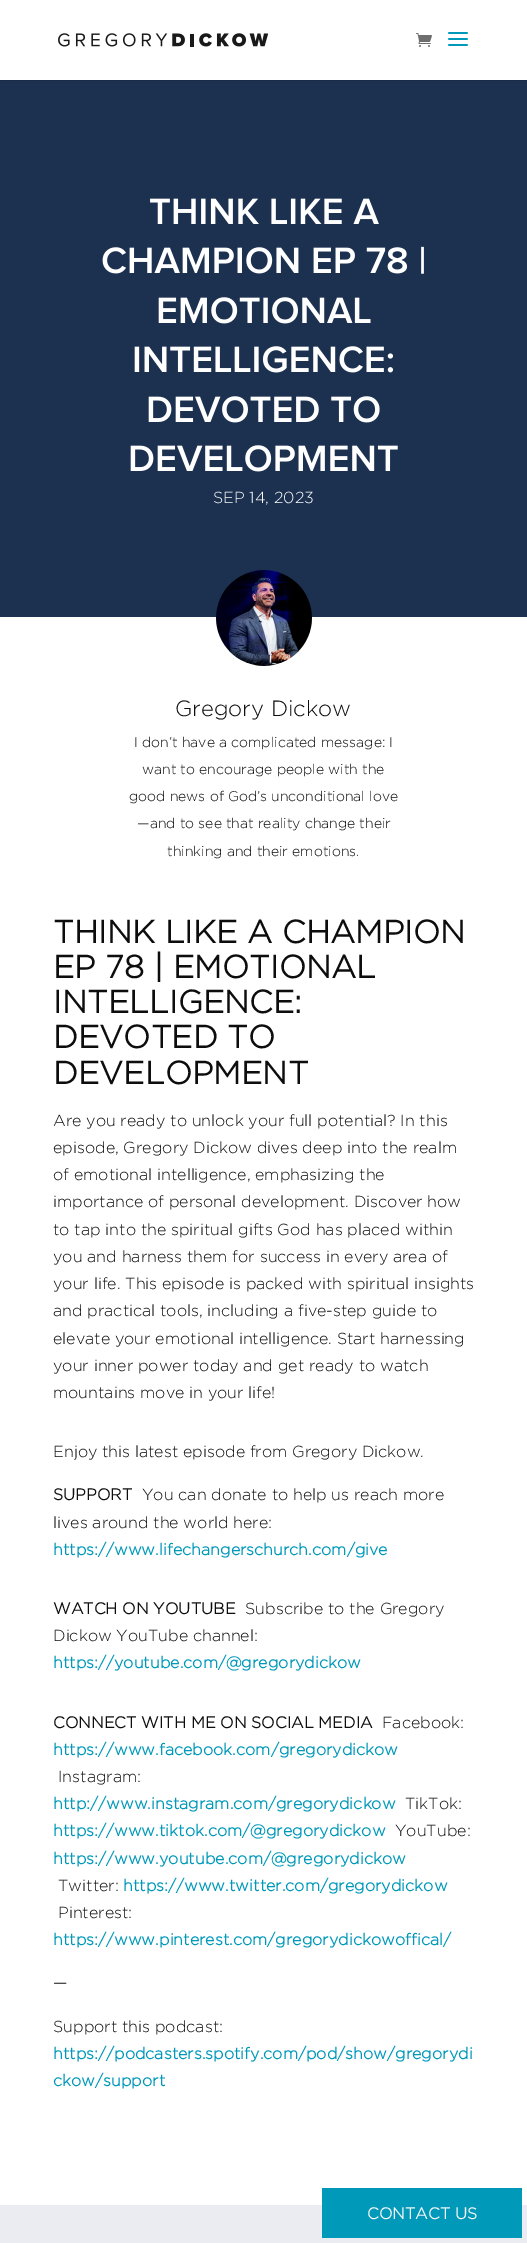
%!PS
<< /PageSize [527 2243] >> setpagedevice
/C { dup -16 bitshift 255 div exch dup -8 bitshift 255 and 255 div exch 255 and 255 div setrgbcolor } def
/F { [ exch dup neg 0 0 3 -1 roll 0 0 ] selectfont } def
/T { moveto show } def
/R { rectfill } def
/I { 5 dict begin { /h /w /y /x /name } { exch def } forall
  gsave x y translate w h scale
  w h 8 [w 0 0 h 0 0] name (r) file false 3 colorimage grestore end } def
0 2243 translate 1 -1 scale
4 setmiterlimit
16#FFFFFF C
0 0 527 2243 R
16#192B47 C
0 80 527 1 R
(1.rgb) 58 33 210 14 I
(2.rgb) 416 33 16 14 I
(3.rgb) 448 32 20 14 I
16#1C304F C
0 81 527 536 R
(4.rgb) 150 198 229 26 I
(5.rgb) 102 246 322 28 I
(6.rgb) 158 297 213 27 I
(7.rgb) 134 346 259 27 I
(8.rgb) 148 396 232 27 I
(9.rgb) 130 445 268 27 I
/Gotham-Light 16 F
16#FFFFFF C
(SEP 14, 2023) 213 503 T
(10.rgb) 216 570 96 96 I
/Gotham-Light 22 F
16#0D0D0D C
(Gregory Dickow) 175 716 T
/Gotham-Light 14 F
(I don’t have a complicated message: I) 134 747 T
(want to encourage people with the) 142 774 T
(good news of God’s unconditional love) 129 801 T
(—and to see that reality change their) 137 828 T
(thinking and their emotions.) 167 856 T
/Gotham-Bold 32 F
(THINK LIKE A CHAMPION) 53 943 T
(EP 78 | EMOTIONAL) 53 978 T
(INTELLIGENCE:) 53 1013 T
(DEVOTED TO) 53 1048 T
(DEVELOPMENT) 53 1084 T
/Gotham-Light 16 F
(Are you ready to unlock your full potential? In this) 53 1126 T
(episode, Gregory Dickow dives deep into the realm) 53 1153 T
(of emotional intelligence, emphasizing the) 53 1180 T
(importance of personal development. Discover how) 53 1207 T
(to tap into the spiritual gifts God has placed within) 53 1235 T
(you and harness them for success in every area of) 53 1262 T
(your life. This episode is packed with spiritual insights) 53 1289 T
(and practical tools, including a five-step guide to) 53 1316 T
(elevate your emotional intelligence. Start harnessing) 53 1344 T
(your inner power today and get ready to watch) 53 1371 T
(mountains move in your life!) 53 1398 T
(Enjoy this latest episode from Gregory Dickow.) 53 1457 T
/Gotham-Bold 16 F
(SUPPORT) 53 1500 T
/Gotham-Light 16 F
(You can donate to help us reach more) 142 1500 T
(lives around the world here:) 53 1528 T
/Gotham-Bold 16 F
16#0099BA C
(https://www.lifechangerschurch.com/give) 53 1555 T
16#0D0D0D C
(WATCH ON YOUTUBE) 53 1614 T
/Gotham-Light 16 F
(Subscribe to the Gregory) 245 1614 T
(Dickow YouTube channel:) 53 1641 T
/Gotham-Bold 16 F
16#0099BA C
(https://youtube.com/@gregorydickow) 53 1668 T
16#0D0D0D C
(CONNECT WITH ME ON SOCIAL MEDIA) 53 1728 T
/Gotham-Light 16 F
(Facebook:) 382 1728 T
/Gotham-Bold 16 F
16#0099BA C
(https://www.facebook.com/gregorydickow) 53 1755 T
/Gotham-Light 16 F
16#0D0D0D C
(Instagram:) 58 1782 T
/Gotham-Bold 16 F
16#0099BA C
(http://www.instagram.com/gregorydickow) 53 1809 T
/Gotham-Light 16 F
16#0D0D0D C
(TikTok:) 405 1809 T
/Gotham-Bold 16 F
16#0099BA C
(https://www.tiktok.com/@gregorydickow) 53 1836 T
/Gotham-Light 16 F
16#0D0D0D C
(YouTube:) 395 1836 T
/Gotham-Bold 16 F
16#0099BA C
(https://www.youtube.com/@gregorydickow) 53 1864 T
/Gotham-Light 16 F
16#0D0D0D C
(Twitter:) 58 1891 T
/Gotham-Bold 16 F
16#0099BA C
(https://www.twitter.com/gregorydickow) 123 1891 T
/Gotham-Light 16 F
16#0D0D0D C
(Pinterest:) 58 1918 T
/Gotham-Bold 16 F
16#0099BA C
(https://www.pinterest.com/gregorydickowoffical/) 53 1945 T
/Gotham-Light 16 F
16#0D0D0D C
(—) 53 1988 T
(Support this podcast:) 53 2032 T
/Gotham-Bold 16 F
16#0099BA C
(https://podcasters.spotify.com/pod/show/gregorydi) 53 2059 T
(ckow/support) 53 2086 T
16#EBECF1 C
0 2205 527 38 R
16#0099BA C
322 2188 200 50 R
16#F7F7F7 C
(CONTACT US) 367 2219 T
showpage
